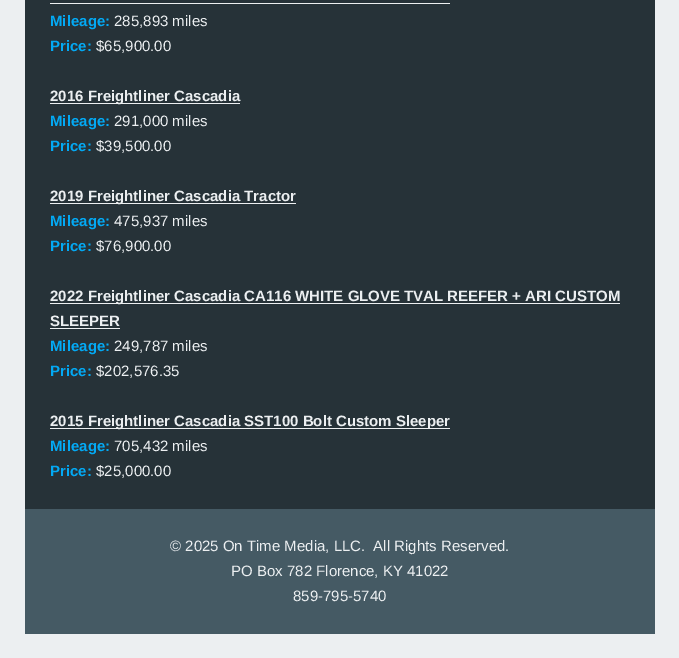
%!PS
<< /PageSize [679 658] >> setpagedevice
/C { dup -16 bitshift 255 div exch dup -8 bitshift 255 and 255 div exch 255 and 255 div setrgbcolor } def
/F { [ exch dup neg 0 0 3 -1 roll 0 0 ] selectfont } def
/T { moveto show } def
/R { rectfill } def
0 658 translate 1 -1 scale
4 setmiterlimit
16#ECEFF1 C
0 0 679 658 R
16#263238 C
25 0 630 509 R
16#ECEFF1 C
50 3 400 1 R
/LiberationSans-Bold 15 F
16#03A9F4 C
(Mileage:) 50 26 T
/LiberationSans-Regular 15 F
16#ECEFF1 C
(285,893 miles) 114 26 T
/LiberationSans-Bold 15 F
16#03A9F4 C
(Price:) 50 51 T
/LiberationSans-Regular 15 F
16#ECEFF1 C
($65,900.00) 96 51 T
50 103 190 1 R
/LiberationSans-Bold 15 F
(2016 Freightliner Cascadia) 50 101 T
16#03A9F4 C
(Mileage:) 50 126 T
/LiberationSans-Regular 15 F
16#ECEFF1 C
(291,000 miles) 114 126 T
/LiberationSans-Bold 15 F
16#03A9F4 C
(Price:) 50 151 T
/LiberationSans-Regular 15 F
16#ECEFF1 C
($39,500.00) 96 151 T
50 203 246 1 R
/LiberationSans-Bold 15 F
(2019 Freightliner Cascadia Tractor) 50 201 T
16#03A9F4 C
(Mileage:) 50 226 T
/LiberationSans-Regular 15 F
16#ECEFF1 C
(475,937 miles) 114 226 T
/LiberationSans-Bold 15 F
16#03A9F4 C
(Price:) 50 251 T
/LiberationSans-Regular 15 F
16#ECEFF1 C
($76,900.00) 96 251 T
50 303 570 1 R
/LiberationSans-Bold 15 F
(2022 Freightliner Cascadia CA116 WHITE GLOVE TVAL REEFER + ARI CUSTOM) 50 301 T
(SLEEPER) 50 326 T
50 328 70 1 R
16#03A9F4 C
(Mileage:) 50 351 T
/LiberationSans-Regular 15 F
16#ECEFF1 C
(249,787 miles) 114 351 T
/LiberationSans-Bold 15 F
16#03A9F4 C
(Price:) 50 376 T
/LiberationSans-Regular 15 F
16#ECEFF1 C
($202,576.35) 96 376 T
50 428 400 1 R
/LiberationSans-Bold 15 F
(2015 Freightliner Cascadia SST100 Bolt Custom Sleeper) 50 426 T
16#03A9F4 C
(Mileage:) 50 451 T
/LiberationSans-Regular 15 F
16#ECEFF1 C
(705,432 miles) 114 451 T
/LiberationSans-Bold 15 F
16#03A9F4 C
(Price:) 50 476 T
/LiberationSans-Regular 15 F
16#ECEFF1 C
($25,000.00) 96 476 T
16#455A64 C
25 509 630 125 R
16#ECEFF1 C
(© 2025 On Time Media, LLC) 170 551 T
(.  All Rights Reserved.) 361 551 T
(PO Box 782 Florence, KY 41022) 231 576 T
(859-795-5740) 293 601 T
showpage
